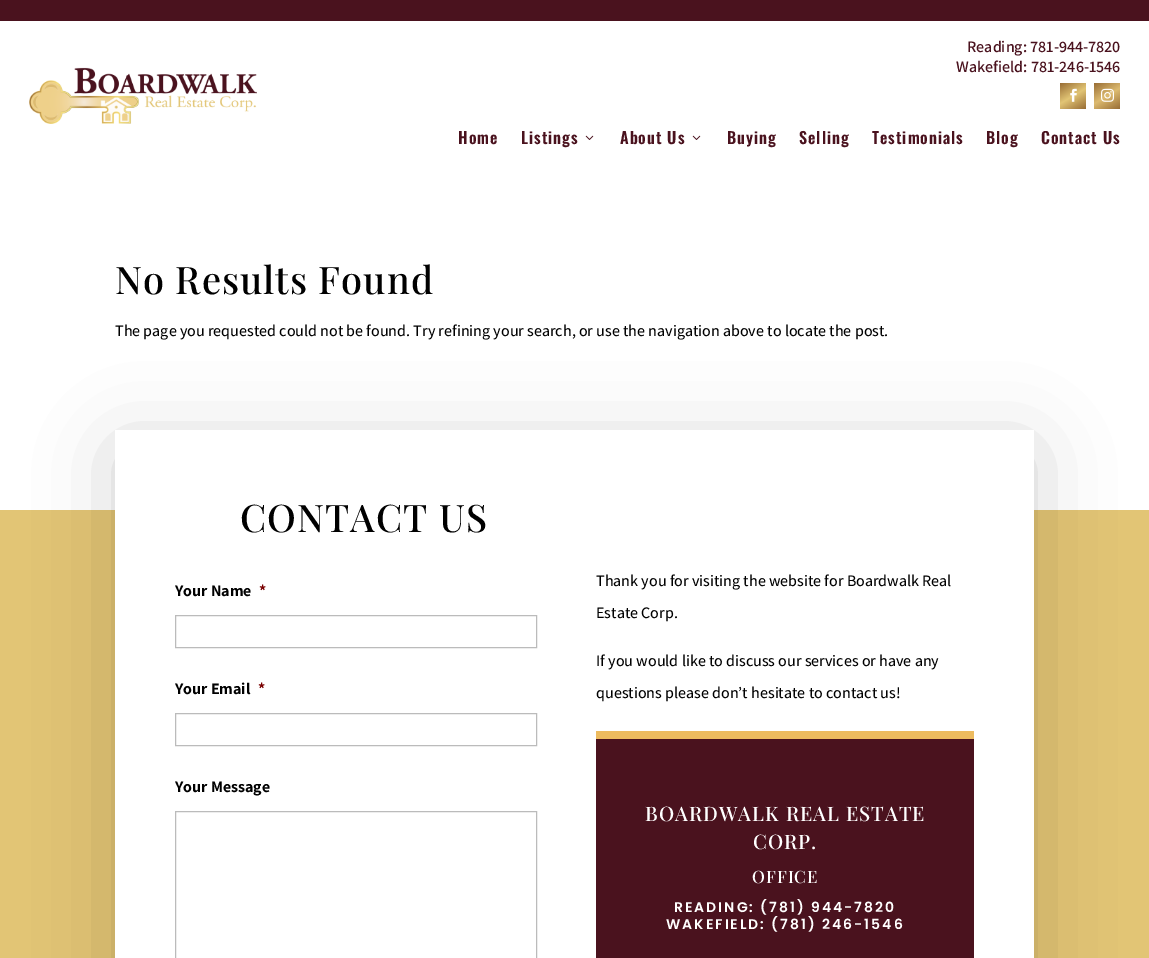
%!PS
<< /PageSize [1149 958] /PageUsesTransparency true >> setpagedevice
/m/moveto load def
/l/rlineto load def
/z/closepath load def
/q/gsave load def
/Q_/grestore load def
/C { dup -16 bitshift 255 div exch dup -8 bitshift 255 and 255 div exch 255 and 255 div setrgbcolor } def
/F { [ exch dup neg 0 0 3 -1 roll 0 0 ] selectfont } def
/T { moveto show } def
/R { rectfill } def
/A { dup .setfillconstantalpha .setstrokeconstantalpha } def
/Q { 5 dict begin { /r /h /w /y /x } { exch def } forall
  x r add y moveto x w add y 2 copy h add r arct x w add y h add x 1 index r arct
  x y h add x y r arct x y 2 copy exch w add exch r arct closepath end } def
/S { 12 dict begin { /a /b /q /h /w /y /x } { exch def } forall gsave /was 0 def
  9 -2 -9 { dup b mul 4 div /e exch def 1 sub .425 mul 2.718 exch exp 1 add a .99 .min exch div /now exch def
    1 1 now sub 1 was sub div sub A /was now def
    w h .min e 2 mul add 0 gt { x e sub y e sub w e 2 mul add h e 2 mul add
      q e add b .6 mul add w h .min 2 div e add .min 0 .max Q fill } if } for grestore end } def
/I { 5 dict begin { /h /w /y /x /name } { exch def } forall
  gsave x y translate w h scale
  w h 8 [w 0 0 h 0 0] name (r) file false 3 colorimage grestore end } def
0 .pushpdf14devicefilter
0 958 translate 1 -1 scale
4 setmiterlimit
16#FFFFFF C
0 0 1149 958 R
16#4A121E C
0 0 1149 21 R
(1.rgb) 29 67 228 57 I
/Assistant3-ExtraLight 16 F
(Reading: 781-944-7820) 967 52 T
(Wakefield: 781-246-1546) 956 72 T
q 1060 83 m 26 0 l 0 26 l -26 0 l z clip newpath
<< /ShadingType 2 /ColorSpace /DeviceRGB /Coords [1064 81 1082 111] /Extend [true true] /Function << /FunctionType 3 /Domain [0 1] /Functions [<< /FunctionType 2 /Domain [0 1] /C0 [.6 .431 .212] /C1 [.886 .773 .459] /N 1 >> << /FunctionType 2 /Domain [0 1] /C0 [.886 .773 .459] /C1 [.6 .431 .212] /N 1 >>] /Bounds [.5] /Encode [0 1 0 1] >> >> shfill Q_
(2.rgb) 1070 88 7 14 I
q 1094 83 m 26 0 l 0 26 l -26 0 l z clip newpath
<< /ShadingType 2 /ColorSpace /DeviceRGB /Coords [1098 81 1116 111] /Extend [true true] /Function << /FunctionType 3 /Domain [0 1] /Functions [<< /FunctionType 2 /Domain [0 1] /C0 [.6 .431 .212] /C1 [.867 .733 .439] /N 1 >> << /FunctionType 2 /Domain [0 1] /C0 [.867 .733 .439] /C1 [.6 .431 .212] /N 1 >>] /Bounds [.5] /Encode [0 1 0 1] >> >> shfill Q_
(3.rgb) 1101 88 13 14 I
/Oswald-SemiBold 16 F
458 144 m 1 0 (Home) ashow
521 144 m 1 0 (Listings) ashow
(4.rgb) 585 135 9 5 I
620 144 m 1 0 (About Us) ashow
(4.rgb) 692 135 9 5 I
727 144 m 1 0 (Buying) ashow
799 144 m 1 0 (Selling) ashow
872 144 m 1 0 (Testimonials) ashow
986 144 m 1 0 (Blog) ashow
1041 144 m 1 0 (Contact Us) ashow
/PlayfairDisplay-Medium 38 F
16#000000 C
115 294 m 1 0 (No Results Found) ashow
/Assistant-ExtraLight 16 F
(The page you requested could not be found. Try refining your search, or use the navigation above to locate the post.) 115 336 T
16#E2C575 C
0 510 1149 448 R
16#000000 C
121 451 907 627 0 40 .2 S
16#FFFFFF C
115 430 919 528 R
/PlayfairDisplay-Medium 38 F
16#000000 C
240 532 m 1 0 (CONTACT US) ashow
/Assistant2-ExtraLight 16 F
(Your Name) 175 596 T
16#790000 C
(*) 259 596 T
16#BBBBBB C
175.5 615.5 361 32 rectstroke
16#000000 C
(Your Email) 175 694 T
16#790000 C
(*) 258 694 T
16#BBBBBB C
175.5 713.5 361 32 rectstroke
16#000000 C
(Your Message) 175 792 T
16#BBBBBB C
175.5 811.5 361 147 rectstroke
/Assistant-ExtraLight 16 F
16#000000 C
(Thank you for visiting the website for Boardwalk Real) 596 586 T
(Estate Corp.) 596 618 T
(If you would like to discuss our services or have any) 596 666 T
(questions please don’t hesitate to contact us!) 596 698 T
16#4A121E C
596 739 378 219 R
16#EDBB5F C
596 731 378 8 R
/PlayfairDisplay-Medium 20 F
16#FFFFFF C
645 821 m 1 0 (BOARDWALK REAL ESTATE) ashow
753 849 m 1 0 (CORP.) ashow
/PlayfairDisplay-Medium 17 F
752 883 m 1 0 (OFFICE) ashow
/Poppins-SemiBold 14 F
674 912 m 2 0 (READING: \(781\) 944-7820) ashow
666 929 m 2 0 (WAKEFIELD: \(781\) 246-1546) ashow
.poppdf14devicefilter showpage
